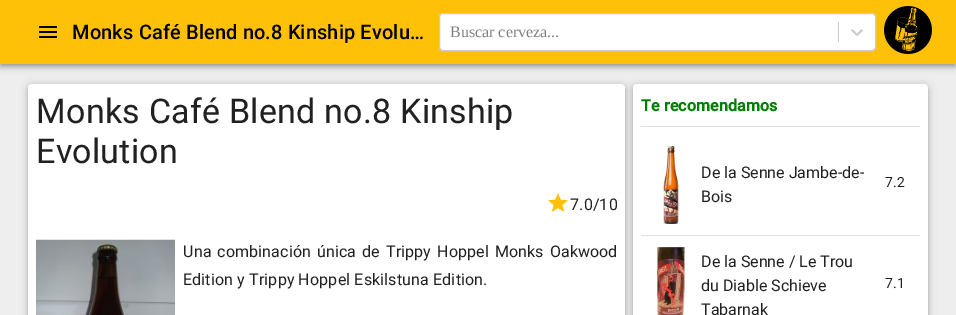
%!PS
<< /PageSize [956 315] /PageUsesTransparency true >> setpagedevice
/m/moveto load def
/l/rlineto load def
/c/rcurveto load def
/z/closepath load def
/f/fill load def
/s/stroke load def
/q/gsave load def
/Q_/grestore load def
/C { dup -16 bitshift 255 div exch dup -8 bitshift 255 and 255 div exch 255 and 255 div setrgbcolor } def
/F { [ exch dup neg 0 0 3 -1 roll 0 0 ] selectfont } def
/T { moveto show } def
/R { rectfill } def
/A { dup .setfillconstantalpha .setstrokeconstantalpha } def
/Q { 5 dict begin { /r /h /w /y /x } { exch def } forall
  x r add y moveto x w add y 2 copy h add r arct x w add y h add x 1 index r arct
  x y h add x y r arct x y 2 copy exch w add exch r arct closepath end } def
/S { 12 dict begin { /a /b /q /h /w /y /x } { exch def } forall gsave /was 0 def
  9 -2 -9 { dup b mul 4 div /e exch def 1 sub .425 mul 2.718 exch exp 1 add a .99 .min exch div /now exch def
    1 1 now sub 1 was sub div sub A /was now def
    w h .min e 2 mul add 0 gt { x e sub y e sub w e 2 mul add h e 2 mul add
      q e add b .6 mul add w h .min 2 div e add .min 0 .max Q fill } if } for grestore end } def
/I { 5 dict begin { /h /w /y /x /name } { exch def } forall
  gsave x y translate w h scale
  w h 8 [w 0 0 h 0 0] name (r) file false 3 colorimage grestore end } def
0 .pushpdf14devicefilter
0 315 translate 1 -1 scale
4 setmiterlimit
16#EEEEEE C
0 0 956 315 R
16#000000 C
0 1 956 64 0 5 .12 S
0 4 956 64 0 2.5 .14 S
1 3 954 62 0 2 .2 S
16#FFC107 C
0 0 956 64 R
(1.rgb) 39 26 18 12 I
/Roboto-Medium 20 F
16#000000 C
72 39 m .15 0 (Monks Café Blend no.8 Kinship Evolu…) ashow
16#FFFFFF C
439.5 13.5 436 37 3.5 Q q f Q_
16#CCCCCC C
s
/LiberationSerif-Regular 16 F
16#808080 C
(Buscar cerveza...) 450 37 T
16#CCCCCC C
838 22 1 20 R
(2.rgb) 851 29 12 7 I
(3.rgb) 884 6 48 48 I
16#000000 C
28 87 597 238 4 2 .14 S
28 85 597 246 4 4 .2 S
16#FFFFFF C
32 84 m 589 0 l 2 0 4 2 4 4 c 0 227 l -597 0 l 0 -227 l 0 -2 2 -4 4 -4 c z f
/Roboto-Regular 34 F
16#212121 C
36 123 m .25 0 (Monks Café Blend no.8 Kinship) ashow
36 163 m .25 0 (Evolution) ashow
(4.rgb) 36 239 139 76 I
(5.rgb) 548 193 20 19 I
/Roboto-Regular 16 F
570 210 m .15 0 (7.0/10) ashow
183 257 m 1.75 0 32 .15 0 (Una combinación única de Trippy Hoppel Monks Oakwood) awidthshow
183 285 m .15 0 (Edition y Trippy Hoppel Eskilstuna Edition.) ashow
16#000000 C
633 87 295 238 4 2 .14 S
633 85 295 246 4 4 .2 S
16#FFFFFF C
637 84 m 287 0 l 2 0 4 2 4 4 c 0 227 l -295 0 l 0 -227 l 0 -2 2 -4 4 -4 c z f
/Roboto-Bold 16 F
16#008000 C
641 111 m .15 0 (Te recomendamos) ashow
16#E0E0E0 C
641 126 279 1 R
641 235 279 1 R
(6.rgb) 663 146 16 78 I
/Roboto-Regular 16 F
16#212121 C
(De la Senne Jambe-de-) 701 178 T
(Bois) 701 202 T
/Roboto-Regular 14 F
(7.2) 885 187 T
(7.rgb) 657 247 28 68 I
/Roboto-Regular 16 F
(De la Senne / Le Trou) 701 267 T
(du Diable Schieve) 701 291 T
(Tabarnak) 701 315 T
/Roboto-Regular 14 F
(7.1) 885 288 T
.poppdf14devicefilter showpage
